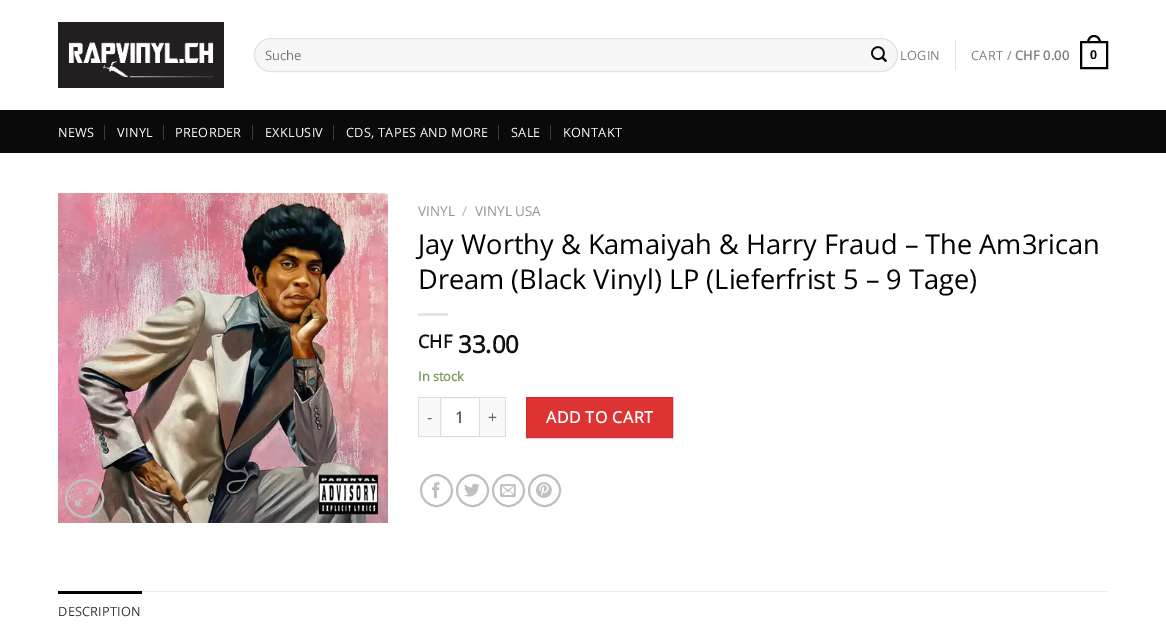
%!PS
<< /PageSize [1166 640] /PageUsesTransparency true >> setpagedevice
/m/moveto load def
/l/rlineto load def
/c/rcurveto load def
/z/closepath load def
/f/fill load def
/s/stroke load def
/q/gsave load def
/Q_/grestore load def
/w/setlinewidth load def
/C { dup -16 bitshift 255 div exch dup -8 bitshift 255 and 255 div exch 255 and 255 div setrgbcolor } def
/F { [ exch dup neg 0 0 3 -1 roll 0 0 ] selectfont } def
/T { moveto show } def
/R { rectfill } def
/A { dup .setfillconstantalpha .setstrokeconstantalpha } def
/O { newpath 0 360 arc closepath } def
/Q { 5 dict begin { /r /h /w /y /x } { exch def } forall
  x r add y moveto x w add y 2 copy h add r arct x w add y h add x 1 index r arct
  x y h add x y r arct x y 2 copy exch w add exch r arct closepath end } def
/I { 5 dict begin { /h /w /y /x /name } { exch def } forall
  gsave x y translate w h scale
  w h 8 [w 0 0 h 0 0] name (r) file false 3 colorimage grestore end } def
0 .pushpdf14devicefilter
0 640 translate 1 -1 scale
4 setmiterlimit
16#FFFFFF C
0 0 1166 640 R
(1.rgb) 58 22 166 66 I
16#F7F7F7 C
254 38 644 34 17 Q f
0.09 A
16#000000 C
254.5 38.5 643 33 16.5 Q s
/OpenSans-Regular 13 F
1 A
16#757575 C
(Suche) 265 60 T
(2.rgb) 871 46 16 16 I
/OpenSans-Regular 12.75 F
16#7D7D7D C
900 60 m .25 0 (LOGIN) ashow
16#E6E6E6 C
955 40 1 30 R
16#7D7D7D C
971 60 m .25 0 (CART /) ashow
/OpenSans-Bold 12.75 F
1015 60 m .25 0 (CHF 0.00) ashow
16#000000 C
2 w
1081 42 26 26 rectstroke
1094 35 m 4.5 0 7 4 7 8 c -14 0 l 0 -4 2.5 -8 7 -8 c z 1094 37 m 3.5 0 5 3 5 6 c -10 0 l 0 -3 1.5 -6 5 -6 c z eofill
/LiberationSans-Bold 12.75 F
1090 59 m .25 0 (0) ashow
16#0A0A0A C
0 110 1166 43 R
/OpenSans-Regular 12.75 F
16#FFFFFF C
58 137 m .25 0 (NEWS) ashow
16#3B3B3B C
104 125 1 15 R
16#FFFFFF C
117 137 m .25 0 (VINYL) ashow
16#3B3B3B C
163 125 1 15 R
16#FFFFFF C
175 137 m .25 0 (PREORDER) ashow
16#3B3B3B C
252 125 1 15 R
16#FFFFFF C
265 137 m .25 0 (EXKLUSIV) ashow
16#3B3B3B C
333 125 1 15 R
16#FFFFFF C
346 137 m .25 0 (CDS, TAPES AND MORE) ashow
16#3B3B3B C
498 125 1 15 R
16#FFFFFF C
511 137 m .25 0 (SALE) ashow
16#3B3B3B C
550 125 1 15 R
16#FFFFFF C
563 137 m .25 0 (KONTAKT) ashow
(3.rgb) 58 193 330 330 I
16#C0C0C0 C
84.5 498.5 18.5 O s
(4.rgb) 75 487 19 20 I
/OpenSans-Regular 13.5 F
16#949494 C
(VINYL) 418 216 T
16#B2B2B2 C
(/) 462 216 T
16#949494 C
(VINYL USA) 475 216 T
/OpenSans-Regular 27.2 F
16#000000 C
(Jay Worthy & Kamaiyah & Harry Fraud – The Am3rican) 418 254 T
(Dream \(Black Vinyl\) LP \(Lieferfrist 5 – 9 Tage\)) 418 289 T
16#E6E6E6 C
418 313 30 3 R
/OpenSans-Bold 18 F
16#111111 C
(CHF) 418 348 T
/OpenSans-Bold 24 F
(33.00) 458 353 T
/OpenSans-Bold 12.75 F
16#7A9C59 C
(In stock) 418 381 T
16#F9F9F9 C
419 398 21 38 R
16#DDDDDD C
418 397 22 1 R
418 436 22 1 R
418 397 1 40 R
/OpenSans-Regular 16 F
16#666666 C
(-) 427 423 T
16#DDDDDD C
1 w
440.5 397.5 39 39 rectstroke
16#333333 C
(1) 455 423 T
16#F9F9F9 C
480 398 25 38 R
16#DDDDDD C
480 397 26 1 R
505 397 1 40 R
480 436 26 1 R
16#666666 C
(+) 488 423 T
16#DD3333 C
526.5 397.5 m 146 0 l 0 40 l -146 0 l z q f Q_
16#D23030 C
s
/OpenSans-Bold 16 F
16#FFFFFF C
546 423 m .5 0 (ADD TO CART) ashow
16#C0C0C0 C
2 w
436.5 490.5 15.5 O s
(5.rgb) 432 482 8 16 I
472.5 490.5 15.5 O s
(6.rgb) 464 483 16 14 I
508.5 490.5 15.5 O s
(7.rgb) 500 484 16 13 I
544.5 490.5 15.5 O s
(8.rgb) 536 482 16 16 I
16#ECECEC C
142 591 966 1 R
16#000000 C
58 591 84 3 R
/OpenSans-Regular 12.75 F
16#333333 C
58 616 m .25 0 (DESCRIPTION) ashow
.poppdf14devicefilter showpage
